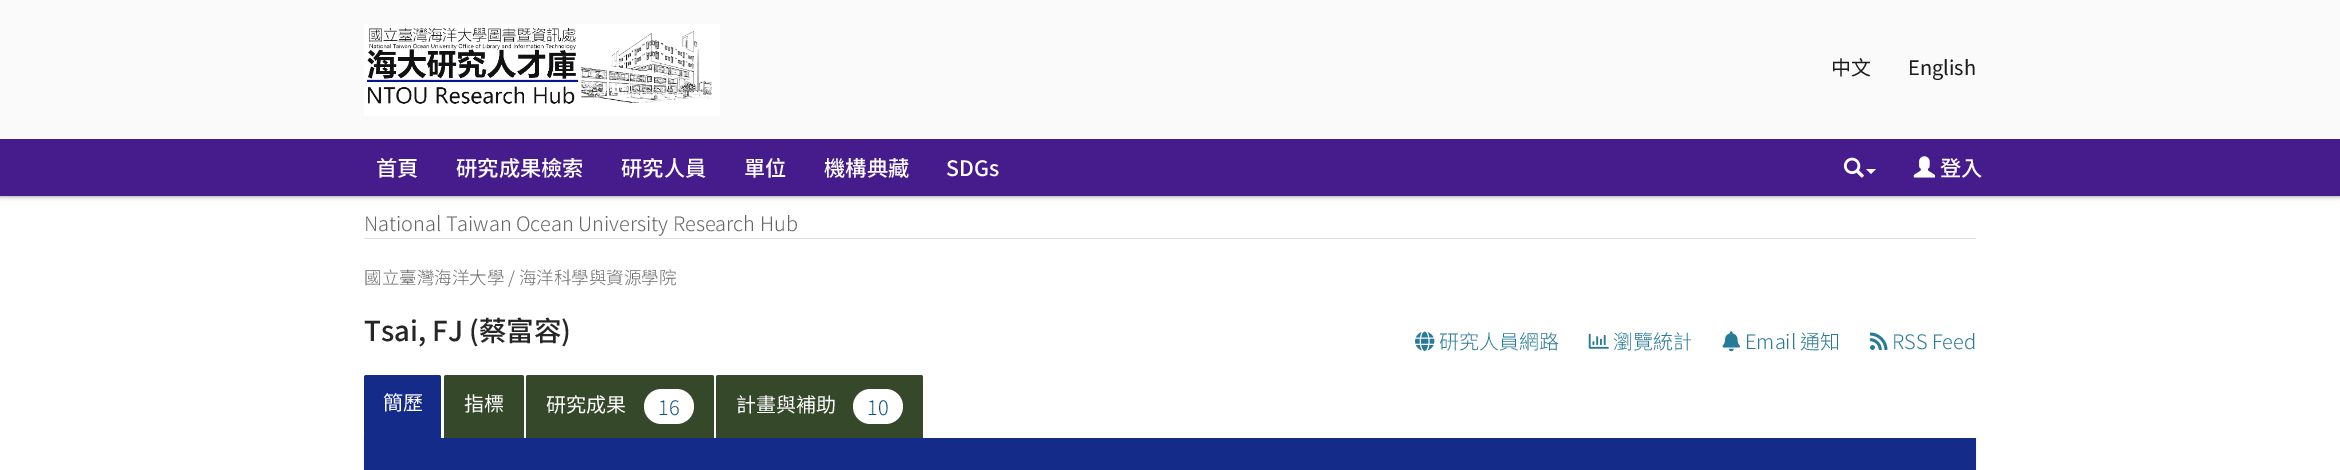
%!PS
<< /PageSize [2340 470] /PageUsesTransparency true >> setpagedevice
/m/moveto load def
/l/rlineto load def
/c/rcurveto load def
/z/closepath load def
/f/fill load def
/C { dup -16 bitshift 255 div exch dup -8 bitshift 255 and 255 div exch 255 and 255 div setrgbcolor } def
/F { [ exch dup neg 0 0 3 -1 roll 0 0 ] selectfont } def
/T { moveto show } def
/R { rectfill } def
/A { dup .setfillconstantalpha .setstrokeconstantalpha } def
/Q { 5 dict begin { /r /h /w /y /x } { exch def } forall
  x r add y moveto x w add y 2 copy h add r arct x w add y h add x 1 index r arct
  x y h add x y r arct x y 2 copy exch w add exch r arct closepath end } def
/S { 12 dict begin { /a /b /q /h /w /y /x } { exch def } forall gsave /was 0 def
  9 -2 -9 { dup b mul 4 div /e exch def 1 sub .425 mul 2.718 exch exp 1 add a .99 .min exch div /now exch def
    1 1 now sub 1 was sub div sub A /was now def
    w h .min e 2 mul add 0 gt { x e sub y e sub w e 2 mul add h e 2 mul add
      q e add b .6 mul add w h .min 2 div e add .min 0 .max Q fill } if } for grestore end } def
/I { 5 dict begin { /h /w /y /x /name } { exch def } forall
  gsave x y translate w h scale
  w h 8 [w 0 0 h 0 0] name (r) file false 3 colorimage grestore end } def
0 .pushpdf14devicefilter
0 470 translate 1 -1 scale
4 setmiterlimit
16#FFFFFF C
0 0 2340 470 R
16#191919 C
0 0 2340 196 0 2.5 .5 S
16#461B8B C
0 139 2340 57 R
16#FAFAFA C
0 0 2340 139 R
(1.rgb) 364 24 356 92 I
/NotoSansTC-Regular 20 F
16#1B1B1B C
(中文) 1831 75 T
(English) 1908 75 T
/NotoSansTC-Medium 21.25 F
16#FFFFFF C
(首頁) 376 176 T
(研究成果檢索) 456 176 T
(研究人員) 621 176 T
(單位) 744 176 T
(機構典藏) 824 176 T
(SDGs) 946 176 T
(2.rgb) 1843 157 21 21 I
1866 169 m 10 0 l -5 5 l z f
(3.rgb) 1913 156 22 22 I
(登入) 1940 176 T
16#DFDFDF C
364 238 1612 1 R
/NotoSansTC-Light 20 F
16#666666 C
(National Taiwan Ocean University Research Hub) 364 231 T
/NotoSansTC-Light 17.5 F
(國立臺灣海洋大學 / 海洋科學與資源學院) 364 284 T
/NotoSansTC-Medium 27.5 F
16#262626 C
(Tsai, FJ \(蔡富容\)) 364 341 T
(4.rgb) 1415 331 20 20 I
/NotoSansTC-Light 20 F
16#287B97 C
(研究人員網路) 1439 349 T
(5.rgb) 1588 333 21 16 I
(瀏覽統計) 1613 349 T
16#FFFFFF C
1691 339 1 2 R
(6.rgb) 1722 331 18 21 I
16#287B97 C
(Email 通知) 1745 349 T
(7.rgb) 1870 332 18 18 I
(RSS Feed) 1892 349 T
16#142B89 C
366.5 375 m 72 0 l 1.5 0 2.5 1 2.5 2.5 c 0 61.5 l -77 0 l 0 -61.5 l 0 -1.5 1 -2.5 2.5 -2.5 c z f
/NotoSansTC-Regular 20 F
16#FFFFFF C
(簡歷) 383 410 T
16#35482A C
446.5 375 m 75 0 l 1.5 0 2.5 1 2.5 2.5 c 0 61.5 l -80 0 l 0 -61.5 l 0 -1.5 1 -2.5 2.5 -2.5 c z f
16#FFFFFF C
(指標) 464 411 T
16#35482A C
528.5 375 m 183 0 l 1.5 0 2.5 1 2.5 2.5 c 0 61.5 l -188 0 l 0 -61.5 l 0 -1.5 1 -2.5 2.5 -2.5 c z f
16#FFFFFF C
(研究成果) 546 412 T
644 389 50 35 17.5 Q f
/NotoSansTC-Light 20 F
16#0B517F C
(16) 658 415 T
16#35482A C
718.5 375 m 202 0 l 1.5 0 2.5 1 2.5 2.5 c 0 61.5 l -207 0 l 0 -61.5 l 0 -1.5 1 -2.5 2.5 -2.5 c z f
/NotoSansTC-Regular 20 F
16#FFFFFF C
(計畫與補助) 736 412 T
853 389 50 35 17.5 Q f
/NotoSansTC-Light 20 F
16#0B517F C
(10) 867 415 T
16#191919 C
364 439 1612 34 0 1 .1 S
16#142B89 C
364 438 1612 32 R
.poppdf14devicefilter showpage
